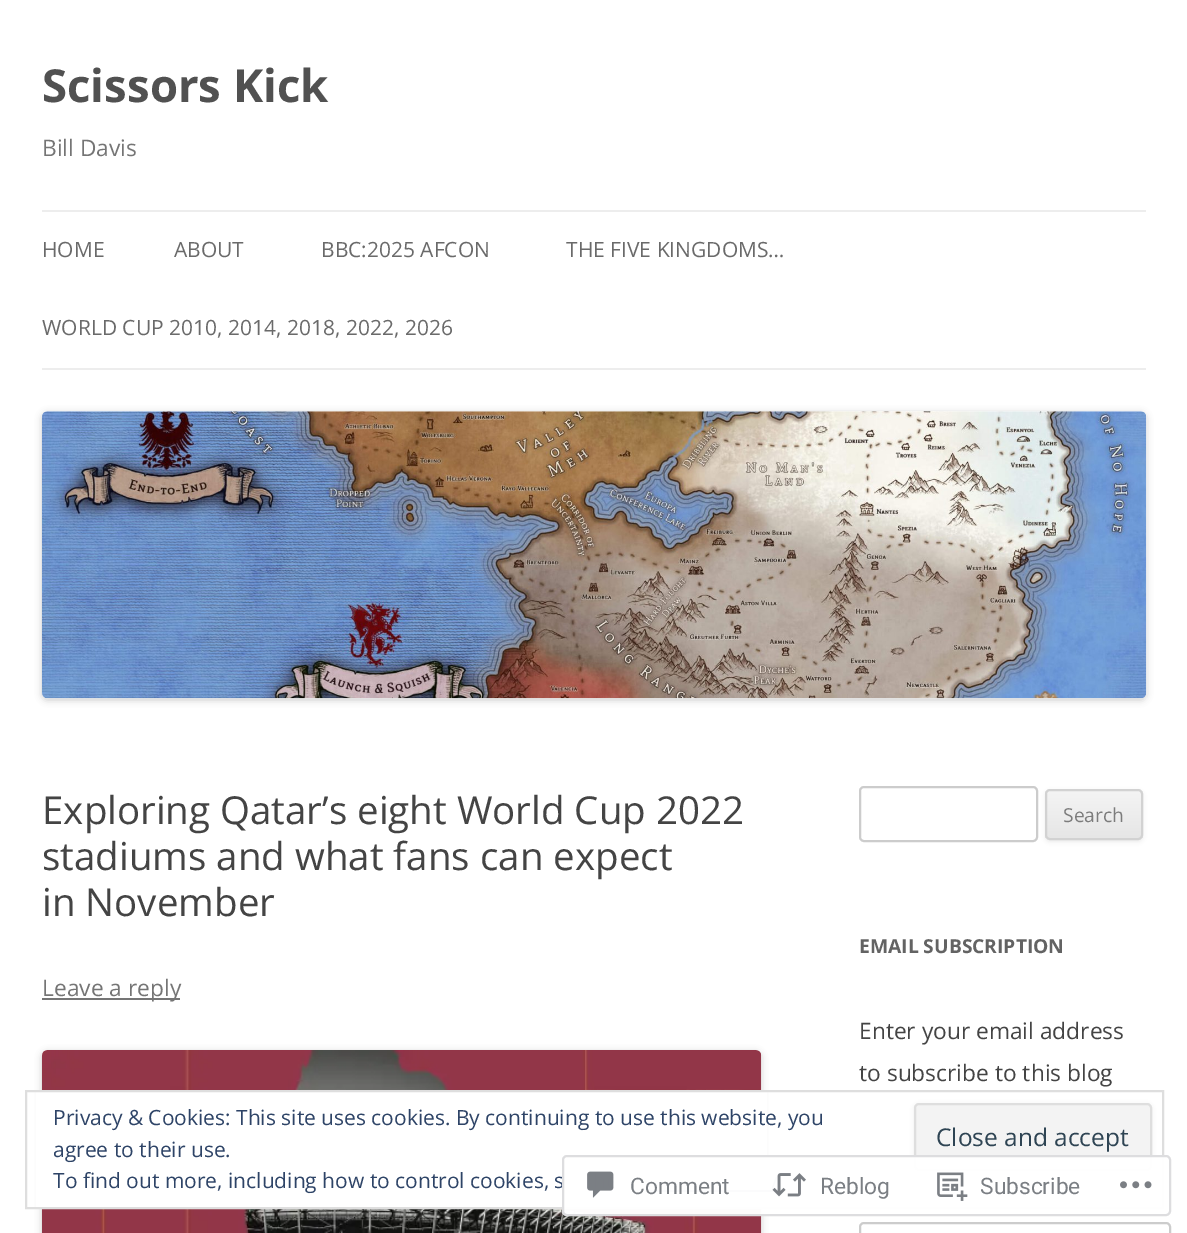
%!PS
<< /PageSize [1187 1233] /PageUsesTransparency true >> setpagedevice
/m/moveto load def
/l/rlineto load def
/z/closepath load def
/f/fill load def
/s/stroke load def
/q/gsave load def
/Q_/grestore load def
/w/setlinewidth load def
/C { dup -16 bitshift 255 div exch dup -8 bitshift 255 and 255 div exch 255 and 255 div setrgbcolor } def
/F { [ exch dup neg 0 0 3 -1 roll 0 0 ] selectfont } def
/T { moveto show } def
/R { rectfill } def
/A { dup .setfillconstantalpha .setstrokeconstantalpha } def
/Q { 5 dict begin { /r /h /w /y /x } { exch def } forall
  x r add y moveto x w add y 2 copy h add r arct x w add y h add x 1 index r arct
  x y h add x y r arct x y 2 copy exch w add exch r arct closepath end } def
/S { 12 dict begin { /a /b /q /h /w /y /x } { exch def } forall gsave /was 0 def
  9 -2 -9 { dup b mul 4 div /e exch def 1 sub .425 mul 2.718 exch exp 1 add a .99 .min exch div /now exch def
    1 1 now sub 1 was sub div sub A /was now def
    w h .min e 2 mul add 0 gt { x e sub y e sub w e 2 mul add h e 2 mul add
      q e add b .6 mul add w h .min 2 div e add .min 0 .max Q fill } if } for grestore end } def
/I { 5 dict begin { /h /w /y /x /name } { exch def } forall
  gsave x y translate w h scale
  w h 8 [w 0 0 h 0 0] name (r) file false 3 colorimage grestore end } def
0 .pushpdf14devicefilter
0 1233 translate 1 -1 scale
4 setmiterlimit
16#FFFFFF C
0 0 1187 1233 R
/OpenSans-Bold 45.5 F
16#515151 C
(Scissors Kick) 42 102 T
/OpenSans-Regular 22.75 F
16#757575 C
(Bill Davis) 42 156 T
16#EDEDED C
42 210 1104 2 R
42 368 1104 2 R
/OpenSans-Regular 21 F
16#6A6A6A C
(HOME) 42 257 T
(ABOUT) 174 257 T
(BBC:2025 AFCON) 321 257 T
(THE FIVE KINGDOMS…) 566 257 T
(WORLD CUP 2010, 2014, 2018, 2022, 2026) 42 335 T
16#000000 C
42 413 1104 287 5 3.5 .2 S
(1.rgb) 42 411 1105 288 I
/OpenSans-Regular 38.5 F
16#444444 C
(Exploring Qatar’s eight World Cup 2022) 42 824 T
(stadiums and what fans can expect) 42 870 T
(in November) 42 916 T
16#757575 C
42 998 138 2 R
/OpenSans-Regular 22.75 F
(Leave a reply) 42 996 T
16#000000 C
42 1052 719 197 5 3.5 .2 S
(2.rgb) 42 1050 720 183 I
16#CCCCCC C
2 w
860 787 177 54 4 Q s
16#404040 C
1045 791 98 51 5 2 .1 S
q
1045 789 98 51 5 Q clip newpath
q 1045 791 m 98 0 l 0 47 l -98 0 l z clip newpath
<< /ShadingType 2 /ColorSpace /DeviceRGB /Coords [1094 791 1094 838] /Extend [true true] /Function << /FunctionType 2 /Domain [0 1] /C0 [.957 .957 .957] /C1 [.902 .902 .902] /N 1 >> >> shfill Q_
Q_
16#D2D2D2 C
1046 790 96 49 4 Q s
/OpenSans-Regular 19.25 F
16#7C7C7C C
(Search) 1063 822 T
/OpenSans-Bold 19.25 F
16#636363 C
(EMAIL SUBSCRIPTION) 859 953 T
/OpenSans-Regular 22.75 F
16#444444 C
(Enter your email address) 859 1039 T
(to subscribe to this blog) 859 1081 T
16#CCCCCC C
860 1223 310 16 4 Q s
16#FFFFFF C
36 1092 731 115 R
16#DEDEDE C
26 1091 1137 117 rectstroke
/OpenSans-Regular 21 F
16#2E4467 C
(Privacy & Cookies: This site uses cookies. By continuing to use this website, you) 53 1125 T
(agree to their use.) 53 1157 T
16#404040 C
914 1104 238 69 5 2 .1 S
16#F3F3F3 C
915 1104 236 66 4 Q q f Q_
16#DEDEDE C
s
/OpenSans-Regular 24.5 F
16#2E4453 C
(Close and accept) 936 1146 T
/OpenSans-Regular 21 F
16#2E4467 C
(To find out more, including how to control cookies, s) 53 1188 T
649 1190 128 2 R
0.98 A
16#FFFFFF C
562 1155 609 61 5 Q f
16#DCDCDE C
563 1156 607 59 4 Q s
1 A
(3.rgb) 587 1171 27 27 I
/Roboto-Regular 22.75 F
16#7B7F84 C
(Comment) 630 1194 T
(4.rgb) 772 1173 34 24 I
(Reblog) 820 1194 T
(5.rgb) 937 1172 31 29 I
(Subscribe) 980 1194 T
(6.rgb) 1120 1181 32 8 I
.poppdf14devicefilter showpage
